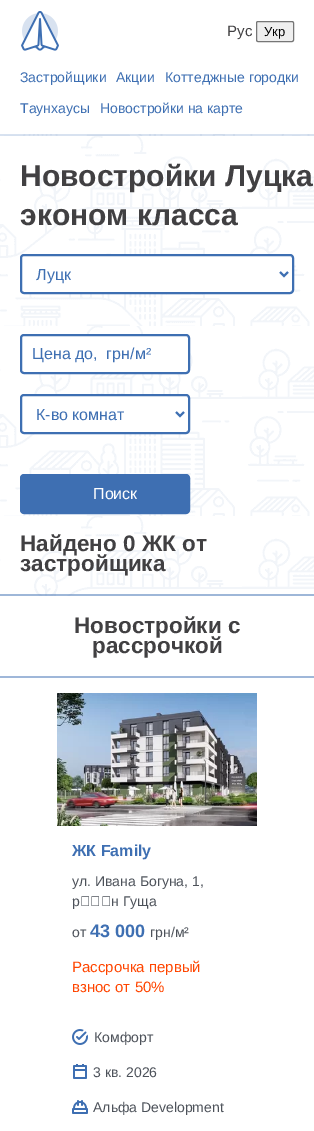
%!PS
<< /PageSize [314 1131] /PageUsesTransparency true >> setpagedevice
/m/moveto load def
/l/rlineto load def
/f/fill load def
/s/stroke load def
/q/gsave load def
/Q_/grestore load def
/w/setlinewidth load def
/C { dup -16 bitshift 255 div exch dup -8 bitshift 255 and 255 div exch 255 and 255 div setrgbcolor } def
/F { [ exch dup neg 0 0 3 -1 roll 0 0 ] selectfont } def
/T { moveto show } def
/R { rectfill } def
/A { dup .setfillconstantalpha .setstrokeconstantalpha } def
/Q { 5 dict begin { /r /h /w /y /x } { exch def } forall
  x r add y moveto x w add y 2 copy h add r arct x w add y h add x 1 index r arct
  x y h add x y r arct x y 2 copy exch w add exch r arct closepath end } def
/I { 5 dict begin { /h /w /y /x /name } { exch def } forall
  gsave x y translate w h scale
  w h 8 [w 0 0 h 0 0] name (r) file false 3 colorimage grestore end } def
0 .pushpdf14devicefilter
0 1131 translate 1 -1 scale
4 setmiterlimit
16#FFFFFF C
0 0 314 1131 R
(1.rgb) 21 11 38 40 I
/LiberationSans-Regular 15 F
16#414042 C
(Рус) 227 36 T
16#EFEFEF C
256.5 21.5 37 20 1.5 Q q f Q_
16#767676 C
s
/LiberationSans-Regular 13 F
16#000000 C
(Укр) 264 36 T
/LiberationSans-Regular 14 F
16#3E6FB2 C
(Застройщики) 20 82 T
(Акции) 116 82 T
(Коттеджные городки) 165 82 T
(Таунхаусы) 20 113 T
(Новостройки на карте) 100 113 T
(2.rgb) 0 134 314 462 I
0.2 A
0 134 314 2 R
0.5 A
0 594 314 2 R
/LiberationSans-Bold 30 F
1 A
16#414042 C
(Новостройки Луцка) 20 186 T
(эконом класса) 20 225 T
16#FFFFFF C
21 255 272 38 3 Q q f Q_
16#3E6FB2 C
2 w
s
280 272 m 4 4 l 4 -4 l s
/LiberationSans-Regular 16 F
(Луцк) 36 280 T
16#FFFFFF C
21 335 168 38 3 Q q f Q_
16#3E6FB2 C
s
(Цена до,  грн/м²) 32 359 T
16#FFFFFF C
21 395 168 38 3 Q q f Q_
16#3E6FB2 C
s
176 412 m 4 4 l 4 -4 l s
(К-во комнат) 36 420 T
21 475 168 38 3 Q q f Q_
s
16#FFFFFF C
(Поиск) 93 499 T
/LiberationSans-Bold 22.5 F
16#414042 C
(Найдено 0 ЖК от) 20 551 T
(застройщика) 20 571 T
(Новостройки с) 74 633 T
(рассрочкой) 92 653 T
16#9FB7D9 C
0 676 314 2 R
(3.rgb) 57 693 200 133 I
/LiberationSans-Bold 16 F
16#3E6FB2 C
(ЖК Family) 72 856 T
/LiberationSans-Regular 14 F
16#4D525A C
(ул. Ивана Богуна, 1,) 72 886 T
(р‑н Гуща) 72 906 T
(от) 72 937 T
/LiberationSans-Bold 18 F
16#3E6FB2 C
(43 000) 90 937 T
/LiberationSans-Regular 14 F
16#4D525A C
(грн/м²) 150 937 T
/LiberationSans-Regular 15 F
16#FF4500 C
(Рассрочка первый) 72 972 T
(взнос от 50%) 72 992 T
(4.rgb) 72 1029 16 16 I
/LiberationSans-Regular 14 F
16#4D525A C
(Комфорт) 94 1042 T
(5.rgb) 73 1064 14 15 I
(3 кв. 2026) 93 1077 T
(6.rgb) 72 1100 16 14 I
(Альфа Development) 93 1112 T
.poppdf14devicefilter showpage
